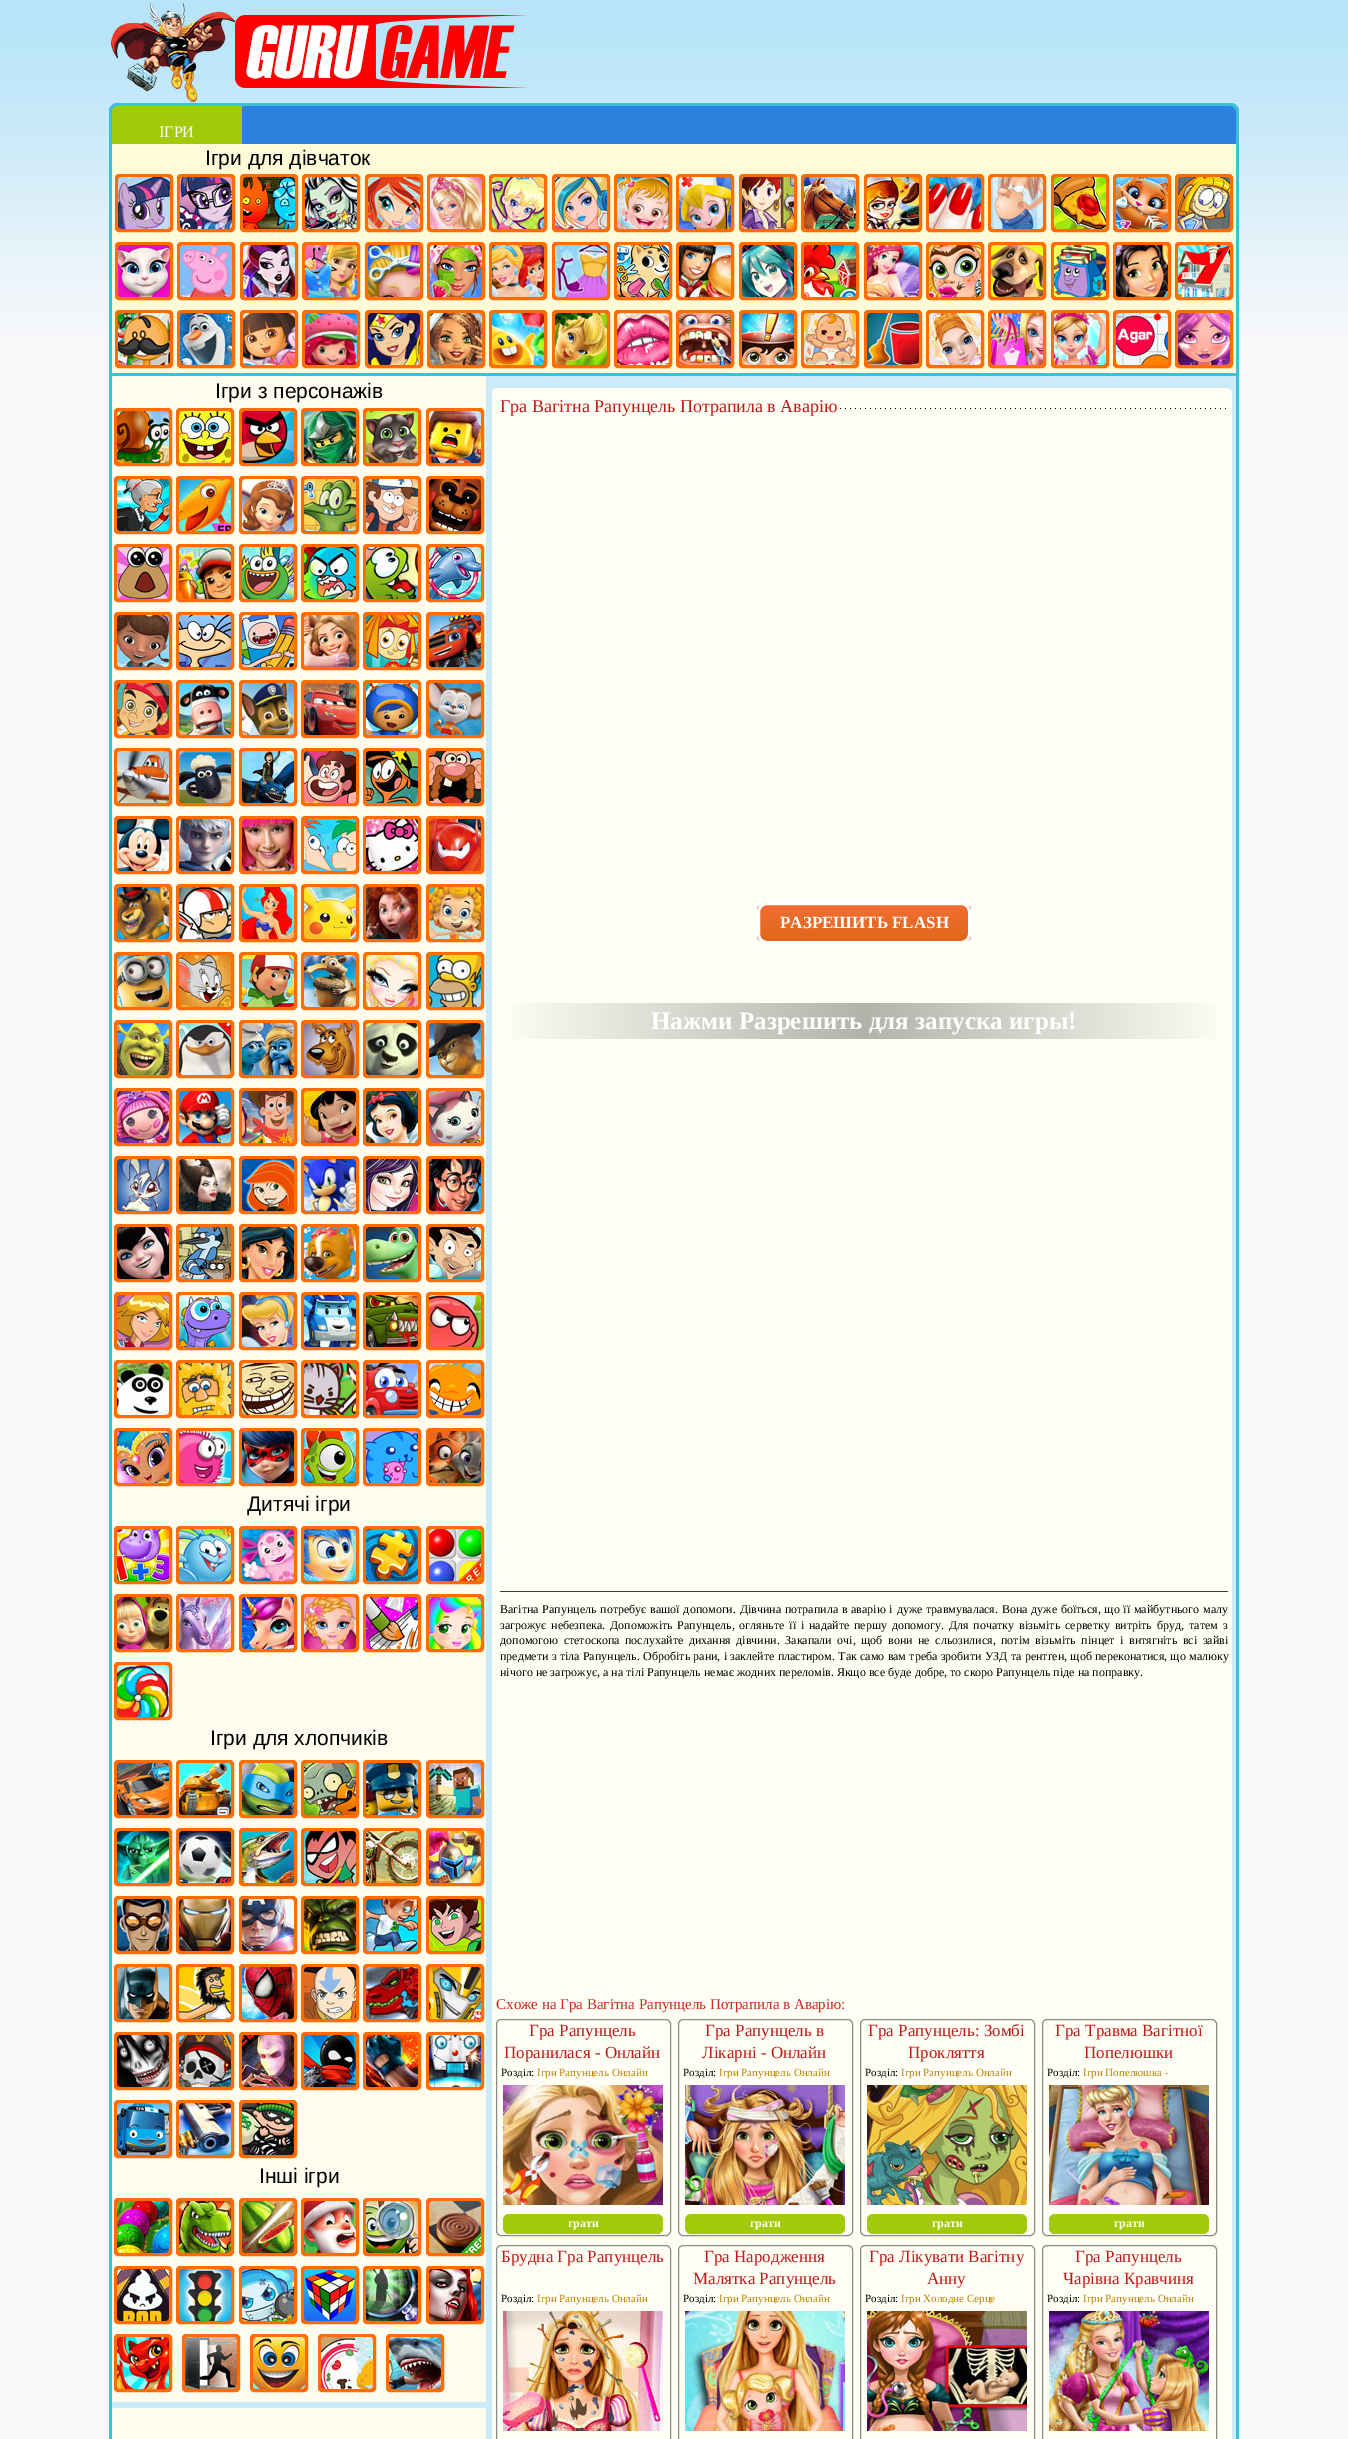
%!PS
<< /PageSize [1348 2439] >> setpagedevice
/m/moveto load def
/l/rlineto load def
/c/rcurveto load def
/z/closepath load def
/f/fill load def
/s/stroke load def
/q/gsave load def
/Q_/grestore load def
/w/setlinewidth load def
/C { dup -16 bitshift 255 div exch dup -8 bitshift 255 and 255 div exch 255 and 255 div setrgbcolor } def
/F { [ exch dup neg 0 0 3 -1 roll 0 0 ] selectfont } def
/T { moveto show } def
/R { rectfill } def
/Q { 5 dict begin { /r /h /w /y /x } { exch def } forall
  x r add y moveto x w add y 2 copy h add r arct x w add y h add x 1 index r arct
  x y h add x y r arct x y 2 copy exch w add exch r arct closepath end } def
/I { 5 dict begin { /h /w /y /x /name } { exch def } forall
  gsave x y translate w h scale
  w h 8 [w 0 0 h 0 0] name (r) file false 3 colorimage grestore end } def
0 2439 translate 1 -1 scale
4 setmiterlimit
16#FBF9FA C
0 0 1348 2439 R
(1.rgb) 0 0 1348 341 I
(2.rgb) 111 3 416 99 I
16#2C81DE C
118 103 m 1112 0 l 5 0 9 4 9 9 c 0 32 l -1130 0 l 0 -32 l 0 -5 4 -9 9 -9 c z f
16#3CBFDB C
118 103 m 1112 0 l 5 0 9 4 9 9 c 0 32 l -1130 0 l 0 -32 l 0 -5 4 -9 9 -9 c z 118 106 m 1112 0 l 3 0 6 3 6 6 c 0 32 l -1124 0 l 0 -32 l 0 -3 3 -6 6 -6 c z eofill
16#A2C90A C
118 106 m 124 0 l 0 38 l -130 0 l 0 -32 l 0 -3.5 2.5 -6 6 -6 c z f
/LiberationSerif-Regular 16 F
16#FFFFFF C
(ІГРИ) 159 137 T
16#FFFAD7 C
112 144 1124 229 R
16#3CBFDB C
1236 144 3 2295 R
109 373 1130 3 R
109 144 3 232 R
/LiberationSans-Regular 21 F
16#000000 C
(Ігри для дівчаток) 205 165 T
16#FF6D01 C
116.5 175.5 55 55 2.5 Q q f Q_
3 w
s
(3.rgb) 118 177 52 52 I
178.5 175.5 55 55 2.5 Q q f Q_
s
(4.rgb) 180 177 52 52 I
241.5 175.5 55 55 2.5 Q q f Q_
s
(5.rgb) 243 177 52 52 I
303.5 175.5 55 55 2.5 Q q f Q_
s
(6.rgb) 305 177 52 52 I
366.5 175.5 55 55 2.5 Q q f Q_
s
(7.rgb) 368 177 52 52 I
428.5 175.5 55 55 2.5 Q q f Q_
s
(8.rgb) 430 177 52 52 I
490.5 175.5 55 55 2.5 Q q f Q_
s
(9.rgb) 492 177 52 52 I
553.5 175.5 55 55 2.5 Q q f Q_
s
(10.rgb) 555 177 52 52 I
615.5 175.5 55 55 2.5 Q q f Q_
s
(11.rgb) 617 177 52 52 I
677.5 175.5 55 55 2.5 Q q f Q_
s
(12.rgb) 679 177 52 52 I
740.5 175.5 55 55 2.5 Q q f Q_
s
(13.rgb) 742 177 52 52 I
802.5 175.5 55 55 2.5 Q q f Q_
s
(14.rgb) 804 177 52 52 I
865.5 175.5 55 55 2.5 Q q f Q_
s
(15.rgb) 867 177 52 52 I
927.5 175.5 55 55 2.5 Q q f Q_
s
(16.rgb) 929 177 52 52 I
989.5 175.5 55 55 2.5 Q q f Q_
s
(17.rgb) 991 177 52 52 I
1052.5 175.5 55 55 2.5 Q q f Q_
s
(18.rgb) 1054 177 52 52 I
1114.5 175.5 55 55 2.5 Q q f Q_
s
(19.rgb) 1116 177 52 52 I
1176.5 175.5 55 55 2.5 Q q f Q_
s
(20.rgb) 1178 177 52 52 I
116.5 243.5 55 55 2.5 Q q f Q_
s
(21.rgb) 118 245 52 52 I
178.5 243.5 55 55 2.5 Q q f Q_
s
(22.rgb) 180 245 52 52 I
241.5 243.5 55 55 2.5 Q q f Q_
s
(23.rgb) 243 245 52 52 I
303.5 243.5 55 55 2.5 Q q f Q_
s
(24.rgb) 305 245 52 52 I
366.5 243.5 55 55 2.5 Q q f Q_
s
(25.rgb) 368 245 52 52 I
428.5 243.5 55 55 2.5 Q q f Q_
s
(26.rgb) 430 245 52 52 I
490.5 243.5 55 55 2.5 Q q f Q_
s
(27.rgb) 492 245 52 52 I
553.5 243.5 55 55 2.5 Q q f Q_
s
(28.rgb) 555 245 52 52 I
615.5 243.5 55 55 2.5 Q q f Q_
s
(29.rgb) 617 245 52 52 I
677.5 243.5 55 55 2.5 Q q f Q_
s
(30.rgb) 679 245 52 52 I
740.5 243.5 55 55 2.5 Q q f Q_
s
(31.rgb) 742 245 52 52 I
802.5 243.5 55 55 2.5 Q q f Q_
s
(32.rgb) 804 245 52 52 I
865.5 243.5 55 55 2.5 Q q f Q_
s
(33.rgb) 867 245 52 52 I
927.5 243.5 55 55 2.5 Q q f Q_
s
(34.rgb) 929 245 52 52 I
989.5 243.5 55 55 2.5 Q q f Q_
s
(35.rgb) 991 245 52 52 I
1052.5 243.5 55 55 2.5 Q q f Q_
s
(36.rgb) 1054 245 52 52 I
1114.5 243.5 55 55 2.5 Q q f Q_
s
(37.rgb) 1116 245 52 52 I
1176.5 243.5 55 55 2.5 Q q f Q_
s
(38.rgb) 1178 245 52 52 I
116.5 311.5 55 55 2.5 Q q f Q_
s
(39.rgb) 118 313 52 52 I
178.5 311.5 55 55 2.5 Q q f Q_
s
(40.rgb) 180 313 52 52 I
241.5 311.5 55 55 2.5 Q q f Q_
s
(41.rgb) 243 313 52 52 I
303.5 311.5 55 55 2.5 Q q f Q_
s
(42.rgb) 305 313 52 52 I
366.5 311.5 55 55 2.5 Q q f Q_
s
(43.rgb) 368 313 52 52 I
428.5 311.5 55 55 2.5 Q q f Q_
s
(44.rgb) 430 313 52 52 I
490.5 311.5 55 55 2.5 Q q f Q_
s
(45.rgb) 492 313 52 52 I
553.5 311.5 55 55 2.5 Q q f Q_
s
(46.rgb) 555 313 52 52 I
615.5 311.5 55 55 2.5 Q q f Q_
s
(47.rgb) 617 313 52 52 I
677.5 311.5 55 55 2.5 Q q f Q_
s
(48.rgb) 679 313 52 52 I
740.5 311.5 55 55 2.5 Q q f Q_
s
(49.rgb) 742 313 52 52 I
802.5 311.5 55 55 2.5 Q q f Q_
s
(50.rgb) 804 313 52 52 I
865.5 311.5 55 55 2.5 Q q f Q_
s
(51.rgb) 867 313 52 52 I
927.5 311.5 55 55 2.5 Q q f Q_
s
(52.rgb) 929 313 52 52 I
989.5 311.5 55 55 2.5 Q q f Q_
s
(53.rgb) 991 313 52 52 I
1052.5 311.5 55 55 2.5 Q q f Q_
s
(54.rgb) 1054 313 52 52 I
1114.5 311.5 55 55 2.5 Q q f Q_
s
(55.rgb) 1116 313 52 52 I
1176.5 311.5 55 55 2.5 Q q f Q_
s
(56.rgb) 1178 313 52 52 I
16#CCEBF9 C
112 376 1124 2063 R
16#3CBFDB C
109 376 3 2063 R
16#FEFCEE C
112 376 374 2026 R
16#000000 C
(Ігри з персонажів) 215 398 T
16#FF6D01 C
115.5 409.5 55 55 2.5 Q q f Q_
s
(57.rgb) 117 411 52 52 I
177.5 409.5 55 55 2.5 Q q f Q_
s
(58.rgb) 179 411 52 52 I
240.5 409.5 55 55 2.5 Q q f Q_
s
(59.rgb) 242 411 52 52 I
302.5 409.5 55 55 2.5 Q q f Q_
s
(60.rgb) 304 411 52 52 I
364.5 409.5 55 55 2.5 Q q f Q_
s
(61.rgb) 366 411 52 52 I
427.5 409.5 55 55 2.5 Q q f Q_
s
(62.rgb) 429 411 52 52 I
115.5 477.5 55 55 2.5 Q q f Q_
s
(63.rgb) 117 479 52 52 I
177.5 477.5 55 55 2.5 Q q f Q_
s
(64.rgb) 179 479 52 52 I
240.5 477.5 55 55 2.5 Q q f Q_
s
(65.rgb) 242 479 52 52 I
302.5 477.5 55 55 2.5 Q q f Q_
s
(66.rgb) 304 479 52 52 I
364.5 477.5 55 55 2.5 Q q f Q_
s
(67.rgb) 366 479 52 52 I
427.5 477.5 55 55 2.5 Q q f Q_
s
(68.rgb) 429 479 52 52 I
115.5 545.5 55 55 2.5 Q q f Q_
s
(69.rgb) 117 547 52 52 I
177.5 545.5 55 55 2.5 Q q f Q_
s
(70.rgb) 179 547 52 52 I
240.5 545.5 55 55 2.5 Q q f Q_
s
(71.rgb) 242 547 52 52 I
302.5 545.5 55 55 2.5 Q q f Q_
s
(72.rgb) 304 547 52 52 I
364.5 545.5 55 55 2.5 Q q f Q_
s
(73.rgb) 366 547 52 52 I
427.5 545.5 55 55 2.5 Q q f Q_
s
(74.rgb) 429 547 52 52 I
115.5 613.5 55 55 2.5 Q q f Q_
s
(75.rgb) 117 615 52 52 I
177.5 613.5 55 55 2.5 Q q f Q_
s
(76.rgb) 179 615 52 52 I
240.5 613.5 55 55 2.5 Q q f Q_
s
(77.rgb) 242 615 52 52 I
302.5 613.5 55 55 2.5 Q q f Q_
s
(78.rgb) 304 615 52 52 I
364.5 613.5 55 55 2.5 Q q f Q_
s
(79.rgb) 366 615 52 52 I
427.5 613.5 55 55 2.5 Q q f Q_
s
(80.rgb) 429 615 52 52 I
115.5 681.5 55 55 2.5 Q q f Q_
s
(81.rgb) 117 683 52 52 I
177.5 681.5 55 55 2.5 Q q f Q_
s
(82.rgb) 179 683 52 52 I
240.5 681.5 55 55 2.5 Q q f Q_
s
(83.rgb) 242 683 52 52 I
302.5 681.5 55 55 2.5 Q q f Q_
s
(84.rgb) 304 683 52 52 I
364.5 681.5 55 55 2.5 Q q f Q_
s
(85.rgb) 366 683 52 52 I
427.5 681.5 55 55 2.5 Q q f Q_
s
(86.rgb) 429 683 52 52 I
115.5 749.5 55 55 2.5 Q q f Q_
s
(87.rgb) 117 751 52 52 I
177.5 749.5 55 55 2.5 Q q f Q_
s
(88.rgb) 179 751 52 52 I
240.5 749.5 55 55 2.5 Q q f Q_
s
(89.rgb) 242 751 52 52 I
302.5 749.5 55 55 2.5 Q q f Q_
s
(90.rgb) 304 751 52 52 I
364.5 749.5 55 55 2.5 Q q f Q_
s
(91.rgb) 366 751 52 52 I
427.5 749.5 55 55 2.5 Q q f Q_
s
(92.rgb) 429 751 52 52 I
115.5 817.5 55 55 2.5 Q q f Q_
s
(93.rgb) 117 819 52 52 I
177.5 817.5 55 55 2.5 Q q f Q_
s
(94.rgb) 179 819 52 52 I
240.5 817.5 55 55 2.5 Q q f Q_
s
(95.rgb) 242 819 52 52 I
302.5 817.5 55 55 2.5 Q q f Q_
s
(96.rgb) 304 819 52 52 I
364.5 817.5 55 55 2.5 Q q f Q_
s
(97.rgb) 366 819 52 52 I
427.5 817.5 55 55 2.5 Q q f Q_
s
(98.rgb) 429 819 52 52 I
115.5 885.5 55 55 2.5 Q q f Q_
s
(99.rgb) 117 887 52 52 I
177.5 885.5 55 55 2.5 Q q f Q_
s
(100.rgb) 179 887 52 52 I
240.5 885.5 55 55 2.5 Q q f Q_
s
(101.rgb) 242 887 52 52 I
302.5 885.5 55 55 2.5 Q q f Q_
s
(102.rgb) 304 887 52 52 I
364.5 885.5 55 55 2.5 Q q f Q_
s
(103.rgb) 366 887 52 52 I
427.5 885.5 55 55 2.5 Q q f Q_
s
(104.rgb) 429 887 52 52 I
115.5 953.5 55 55 2.5 Q q f Q_
s
(105.rgb) 117 955 52 52 I
177.5 953.5 55 55 2.5 Q q f Q_
s
(106.rgb) 179 955 52 52 I
240.5 953.5 55 55 2.5 Q q f Q_
s
(107.rgb) 242 955 52 52 I
302.5 953.5 55 55 2.5 Q q f Q_
s
(108.rgb) 304 955 52 52 I
364.5 953.5 55 55 2.5 Q q f Q_
s
(109.rgb) 366 955 52 52 I
427.5 953.5 55 55 2.5 Q q f Q_
s
(110.rgb) 429 955 52 52 I
115.5 1021.5 55 55 2.5 Q q f Q_
s
(111.rgb) 117 1023 52 52 I
177.5 1021.5 55 55 2.5 Q q f Q_
s
(112.rgb) 179 1023 52 52 I
240.5 1021.5 55 55 2.5 Q q f Q_
s
(113.rgb) 242 1023 52 52 I
302.5 1021.5 55 55 2.5 Q q f Q_
s
(114.rgb) 304 1023 52 52 I
364.5 1021.5 55 55 2.5 Q q f Q_
s
(115.rgb) 366 1023 52 52 I
427.5 1021.5 55 55 2.5 Q q f Q_
s
(116.rgb) 429 1023 52 52 I
115.5 1089.5 55 55 2.5 Q q f Q_
s
(117.rgb) 117 1091 52 52 I
177.5 1089.5 55 55 2.5 Q q f Q_
s
(118.rgb) 179 1091 52 52 I
240.5 1089.5 55 55 2.5 Q q f Q_
s
(119.rgb) 242 1091 52 52 I
302.5 1089.5 55 55 2.5 Q q f Q_
s
(120.rgb) 304 1091 52 52 I
364.5 1089.5 55 55 2.5 Q q f Q_
s
(121.rgb) 366 1091 52 52 I
427.5 1089.5 55 55 2.5 Q q f Q_
s
(122.rgb) 429 1091 52 52 I
115.5 1157.5 55 55 2.5 Q q f Q_
s
(123.rgb) 117 1159 52 52 I
177.5 1157.5 55 55 2.5 Q q f Q_
s
(124.rgb) 179 1159 52 52 I
240.5 1157.5 55 55 2.5 Q q f Q_
s
(125.rgb) 242 1159 52 52 I
302.5 1157.5 55 55 2.5 Q q f Q_
s
(126.rgb) 304 1159 52 52 I
364.5 1157.5 55 55 2.5 Q q f Q_
s
(127.rgb) 366 1159 52 52 I
427.5 1157.5 55 55 2.5 Q q f Q_
s
(128.rgb) 429 1159 52 52 I
115.5 1225.5 55 55 2.5 Q q f Q_
s
(129.rgb) 117 1227 52 52 I
177.5 1225.5 55 55 2.5 Q q f Q_
s
(130.rgb) 179 1227 52 52 I
240.5 1225.5 55 55 2.5 Q q f Q_
s
(131.rgb) 242 1227 52 52 I
302.5 1225.5 55 55 2.5 Q q f Q_
s
(132.rgb) 304 1227 52 52 I
364.5 1225.5 55 55 2.5 Q q f Q_
s
(133.rgb) 366 1227 52 52 I
427.5 1225.5 55 55 2.5 Q q f Q_
s
(134.rgb) 429 1227 52 52 I
115.5 1293.5 55 55 2.5 Q q f Q_
s
(135.rgb) 117 1295 52 52 I
177.5 1293.5 55 55 2.5 Q q f Q_
s
(136.rgb) 179 1295 52 52 I
240.5 1293.5 55 55 2.5 Q q f Q_
s
(137.rgb) 242 1295 52 52 I
302.5 1293.5 55 55 2.5 Q q f Q_
s
(138.rgb) 304 1295 52 52 I
364.5 1293.5 55 55 2.5 Q q f Q_
s
(139.rgb) 366 1295 52 52 I
427.5 1293.5 55 55 2.5 Q q f Q_
s
(140.rgb) 429 1295 52 52 I
115.5 1361.5 55 55 2.5 Q q f Q_
s
(141.rgb) 117 1363 52 52 I
177.5 1361.5 55 55 2.5 Q q f Q_
s
(142.rgb) 179 1363 52 52 I
240.5 1361.5 55 55 2.5 Q q f Q_
s
(143.rgb) 242 1363 52 52 I
302.5 1361.5 55 55 2.5 Q q f Q_
s
(144.rgb) 304 1363 52 52 I
364.5 1361.5 55 55 2.5 Q q f Q_
s
(145.rgb) 366 1363 52 52 I
427.5 1361.5 55 55 2.5 Q q f Q_
s
(146.rgb) 429 1363 52 52 I
115.5 1429.5 55 55 2.5 Q q f Q_
s
(147.rgb) 117 1431 52 52 I
177.5 1429.5 55 55 2.5 Q q f Q_
s
(148.rgb) 179 1431 52 52 I
240.5 1429.5 55 55 2.5 Q q f Q_
s
(149.rgb) 242 1431 52 52 I
302.5 1429.5 55 55 2.5 Q q f Q_
s
(150.rgb) 304 1431 52 52 I
364.5 1429.5 55 55 2.5 Q q f Q_
s
(151.rgb) 366 1431 52 52 I
427.5 1429.5 55 55 2.5 Q q f Q_
s
(152.rgb) 429 1431 52 52 I
16#000000 C
(Дитячі ігри) 247 1511 T
16#FF6D01 C
115.5 1527.5 55 55 2.5 Q q f Q_
s
(153.rgb) 117 1529 52 52 I
177.5 1527.5 55 55 2.5 Q q f Q_
s
(154.rgb) 179 1529 52 52 I
240.5 1527.5 55 55 2.5 Q q f Q_
s
(155.rgb) 242 1529 52 52 I
302.5 1527.5 55 55 2.5 Q q f Q_
s
(156.rgb) 304 1529 52 52 I
364.5 1527.5 55 55 2.5 Q q f Q_
s
(157.rgb) 366 1529 52 52 I
427.5 1527.5 55 55 2.5 Q q f Q_
s
(158.rgb) 429 1529 52 52 I
115.5 1595.5 55 55 2.5 Q q f Q_
s
(159.rgb) 117 1597 52 52 I
177.5 1595.5 55 55 2.5 Q q f Q_
s
(160.rgb) 179 1597 52 52 I
240.5 1595.5 55 55 2.5 Q q f Q_
s
(161.rgb) 242 1597 52 52 I
302.5 1595.5 55 55 2.5 Q q f Q_
s
(162.rgb) 304 1597 52 52 I
364.5 1595.5 55 55 2.5 Q q f Q_
s
(163.rgb) 366 1597 52 52 I
427.5 1595.5 55 55 2.5 Q q f Q_
s
(164.rgb) 429 1597 52 52 I
115.5 1663.5 55 55 2.5 Q q f Q_
s
(165.rgb) 117 1665 52 52 I
16#000000 C
(Ігри для хлопчиків) 210 1745 T
16#FF6D01 C
115.5 1761.5 55 55 2.5 Q q f Q_
s
(166.rgb) 117 1763 52 52 I
177.5 1761.5 55 55 2.5 Q q f Q_
s
(167.rgb) 179 1763 52 52 I
240.5 1761.5 55 55 2.5 Q q f Q_
s
(168.rgb) 242 1763 52 52 I
302.5 1761.5 55 55 2.5 Q q f Q_
s
(169.rgb) 304 1763 52 52 I
364.5 1761.5 55 55 2.5 Q q f Q_
s
(170.rgb) 366 1763 52 52 I
427.5 1761.5 55 55 2.5 Q q f Q_
s
(171.rgb) 429 1763 52 52 I
115.5 1829.5 55 55 2.5 Q q f Q_
s
(172.rgb) 117 1831 52 52 I
177.5 1829.5 55 55 2.5 Q q f Q_
s
(173.rgb) 179 1831 52 52 I
240.5 1829.5 55 55 2.5 Q q f Q_
s
(174.rgb) 242 1831 52 52 I
302.5 1829.5 55 55 2.5 Q q f Q_
s
(175.rgb) 304 1831 52 52 I
364.5 1829.5 55 55 2.5 Q q f Q_
s
(176.rgb) 366 1831 52 52 I
427.5 1829.5 55 55 2.5 Q q f Q_
s
(177.rgb) 429 1831 52 52 I
115.5 1897.5 55 55 2.5 Q q f Q_
s
(178.rgb) 117 1899 52 52 I
177.5 1897.5 55 55 2.5 Q q f Q_
s
(179.rgb) 179 1899 52 52 I
240.5 1897.5 55 55 2.5 Q q f Q_
s
(180.rgb) 242 1899 52 52 I
302.5 1897.5 55 55 2.5 Q q f Q_
s
(181.rgb) 304 1899 52 52 I
364.5 1897.5 55 55 2.5 Q q f Q_
s
(182.rgb) 366 1899 52 52 I
427.5 1897.5 55 55 2.5 Q q f Q_
s
(183.rgb) 429 1899 52 52 I
115.5 1965.5 55 55 2.5 Q q f Q_
s
(184.rgb) 117 1967 52 52 I
177.5 1965.5 55 55 2.5 Q q f Q_
s
(185.rgb) 179 1967 52 52 I
240.5 1965.5 55 55 2.5 Q q f Q_
s
(186.rgb) 242 1967 52 52 I
302.5 1965.5 55 55 2.5 Q q f Q_
s
(187.rgb) 304 1967 52 52 I
364.5 1965.5 55 55 2.5 Q q f Q_
s
(188.rgb) 366 1967 52 52 I
427.5 1965.5 55 55 2.5 Q q f Q_
s
(189.rgb) 429 1967 52 52 I
115.5 2033.5 55 55 2.5 Q q f Q_
s
(190.rgb) 117 2035 52 52 I
177.5 2033.5 55 55 2.5 Q q f Q_
s
(191.rgb) 179 2035 52 52 I
240.5 2033.5 55 55 2.5 Q q f Q_
s
(192.rgb) 242 2035 52 52 I
302.5 2033.5 55 55 2.5 Q q f Q_
s
(193.rgb) 304 2035 52 52 I
364.5 2033.5 55 55 2.5 Q q f Q_
s
(194.rgb) 366 2035 52 52 I
427.5 2033.5 55 55 2.5 Q q f Q_
s
(195.rgb) 429 2035 52 52 I
115.5 2101.5 55 55 2.5 Q q f Q_
s
(196.rgb) 117 2103 52 52 I
177.5 2101.5 55 55 2.5 Q q f Q_
s
(197.rgb) 179 2103 52 52 I
240.5 2101.5 55 55 2.5 Q q f Q_
s
(198.rgb) 242 2103 52 52 I
16#000000 C
(Інші ігри) 259 2183 T
16#FF6D01 C
115.5 2199.5 55 55 2.5 Q q f Q_
s
(199.rgb) 117 2201 52 52 I
177.5 2199.5 55 55 2.5 Q q f Q_
s
(200.rgb) 179 2201 52 52 I
240.5 2199.5 55 55 2.5 Q q f Q_
s
(201.rgb) 242 2201 52 52 I
302.5 2199.5 55 55 2.5 Q q f Q_
s
(202.rgb) 304 2201 52 52 I
364.5 2199.5 55 55 2.5 Q q f Q_
s
(203.rgb) 366 2201 52 52 I
427.5 2199.5 55 55 2.5 Q q f Q_
s
(204.rgb) 429 2201 52 52 I
115.5 2267.5 55 55 2.5 Q q f Q_
s
(205.rgb) 117 2269 52 52 I
177.5 2267.5 55 55 2.5 Q q f Q_
s
(206.rgb) 179 2269 52 52 I
240.5 2267.5 55 55 2.5 Q q f Q_
s
(207.rgb) 242 2269 52 52 I
302.5 2267.5 55 55 2.5 Q q f Q_
s
(208.rgb) 304 2269 52 52 I
364.5 2267.5 55 55 2.5 Q q f Q_
s
(209.rgb) 366 2269 52 52 I
427.5 2267.5 55 55 2.5 Q q f Q_
s
(210.rgb) 429 2269 52 52 I
115.5 2335.5 55 55 2.5 Q q f Q_
s
(211.rgb) 117 2337 52 52 I
183.5 2335.5 55 55 2.5 Q q f Q_
s
(212.rgb) 185 2337 52 52 I
251.5 2335.5 55 55 2.5 Q q f Q_
s
(213.rgb) 253 2337 52 52 I
319.5 2335.5 55 55 2.5 Q q f Q_
s
(214.rgb) 321 2337 52 52 I
387.5 2335.5 55 55 2.5 Q q f Q_
s
(215.rgb) 389 2337 52 52 I
16#FEFCEE C
112 2408 374 31 R
16#FFFEF4 C
492 388 740 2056 5 Q f
(216.rgb) 837 408 390 1 I
/LiberationSerif-Regular 18 F
16#C01B1B C
(Гра Вагітна Рапунцель Потрапила в Аварію) 500 412 T
q
757 902 214 42 10 Q clip newpath
q 757 905 m 214 0 l 0 36 l -214 0 l z clip newpath
<< /ShadingType 2 /ColorSpace /DeviceRGB /Coords [864 905 864 941] /Extend [true true] /Function << /FunctionType 2 /Domain [0 1] /C0 [.949 .427 .192] /C1 [.878 .408 .11] /N 1 >> >> shfill Q_
Q_
16#FFFFFF C
758.5 903.5 211 39 8.5 Q s
/LiberationSerif-Bold 17 F
(РАЗРЕШИТЬ FLASH) 780 928 T
q 512 1003 m 704 0 l 0 36 l -704 0 l z clip newpath
<< /ShadingType 2 /ColorSpace /DeviceRGB /Coords [500 1021 1228 1021] /Extend [true true] /Function << /FunctionType 3 /Domain [0 1] /Functions [<< /FunctionType 2 /Domain [0 1] /C0 [1 .996 .957] /C1 [.702 .698 .671] /N 1 >> << /FunctionType 2 /Domain [0 1] /C0 [.702 .698 .671] /C1 [1 .996 .957] /N 1 >>] /Bounds [.5] /Encode [0 1 0 1] >> >> shfill Q_
/LiberationSerif-Bold 25 F
(Нажми Разрешить для запуска игры!) 651 1029 T
16#3E3E3E C
500 1591 728 1 R
/LiberationSerif-Regular 12 F
16#000000 C
500 1613 m .75 0 32 (Вагітна Рапунцель потребує вашої допомоги. Дівчина потрапила в аварію і дуже травмувалася. Вона дуже боїться, що її майбутнього малу) widthshow
500 1629 m 1.9 0 32 (загрожує небезпека. Допоможіть Рапунцель, огляньте її і надайте першу допомогу. Для початку візьміть серветку витріть бруд, татем з) widthshow
500 1644 m 2.5 0 32 (допомогою стетоскопа послухайте дихання дівчини. Закапали очі, щоб вони не сльозилися, потім візьміть пінцет і витягніть всі зайві) widthshow
500 1660 m .25 0 32 (предмети з тіла Рапунцель. Обробіть рани, і заклейте пластиром. Так само вам треба зробити УЗД та рентген, щоб переконатися, що малюку) widthshow
(нічого не загрожує, а на тілі Рапунцель немає жодних переломів. Якщо все буде добре, то скоро Рапунцель піде на поправку.) 500 1676 T
/LiberationSerif-Regular 15 F
16#D32424 C
(Схоже на Гра Вагітна Рапунцель Потрапила в Аварію:) 496 2009 T
16#8D8B8B C
1 w
496.5 2019.5 174 216 4.5 Q s
/LiberationSerif-Regular 17 F
16#C01B1B C
(Гра Рапунцель) 529 2036 T
(Поранилася - Онлайн) 504 2058 T
/LiberationSerif-Regular 11 F
16#000000 C
(Розділ:) 501 2076 T
16#BC820D C
(Ігри Рапунцель Онлайн) 537 2076 T
(217.rgb) 503 2085 160 120 I
16#A2C90A C
503 2214 160 20 6 Q f
/LiberationSerif-Bold 12 F
16#FFFEF4 C
(грати) 568 2227 T
16#8D8B8B C
678.5 2019.5 174 216 4.5 Q s
/LiberationSerif-Regular 17 F
16#C01B1B C
(Гра Рапунцель в) 705 2036 T
(Лікарні - Онлайн) 702 2058 T
/LiberationSerif-Regular 11 F
16#000000 C
(Розділ:) 683 2076 T
16#BC820D C
(Ігри Рапунцель Онлайн) 719 2076 T
(218.rgb) 685 2085 160 120 I
16#A2C90A C
685 2214 160 20 6 Q f
/LiberationSerif-Bold 12 F
16#FFFEF4 C
(грати) 750 2227 T
16#8D8B8B C
860.5 2019.5 174 216 4.5 Q s
/LiberationSerif-Regular 17 F
16#C01B1B C
(Гра Рапунцель: Зомбі) 868 2036 T
(Прокляття) 908 2058 T
/LiberationSerif-Regular 11 F
16#000000 C
(Розділ:) 865 2076 T
16#BC820D C
(Ігри Рапунцель Онлайн) 901 2076 T
(219.rgb) 867 2085 160 120 I
16#A2C90A C
867 2214 160 20 6 Q f
/LiberationSerif-Bold 12 F
16#FFFEF4 C
(грати) 932 2227 T
16#8D8B8B C
1042.5 2019.5 174 216 4.5 Q s
/LiberationSerif-Regular 17 F
16#C01B1B C
(Гра Травма Вагітної) 1055 2036 T
(Попелюшки) 1084 2058 T
/LiberationSerif-Regular 11 F
16#000000 C
(Розділ:) 1047 2076 T
16#BC820D C
(Ігри Попелюшка -) 1083 2076 T
(220.rgb) 1049 2085 160 120 I
16#A2C90A C
1049 2214 160 20 6 Q f
/LiberationSerif-Bold 12 F
16#FFFEF4 C
(грати) 1114 2227 T
16#8D8B8B C
496.5 2245.5 174 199 4.5 Q s
/LiberationSerif-Regular 17 F
16#C01B1B C
(Брудна Гра Рапунцель) 501 2262 T
/LiberationSerif-Regular 11 F
16#000000 C
(Розділ:) 501 2302 T
16#BC820D C
(Ігри Рапунцель Онлайн) 537 2302 T
(221.rgb) 503 2311 160 120 I
16#8D8B8B C
678.5 2245.5 174 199 4.5 Q s
/LiberationSerif-Regular 17 F
16#C01B1B C
(Гра Народження) 704 2262 T
(Малятка Рапунцель) 693 2284 T
/LiberationSerif-Regular 11 F
16#000000 C
(Розділ:) 683 2302 T
16#BC820D C
(Ігри Рапунцель Онлайн) 719 2302 T
(222.rgb) 685 2311 160 120 I
16#8D8B8B C
860.5 2245.5 174 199 4.5 Q s
/LiberationSerif-Regular 17 F
16#C01B1B C
(Гра Лікувати Вагітну) 869 2262 T
(Анну) 927 2284 T
/LiberationSerif-Regular 11 F
16#000000 C
(Розділ:) 865 2302 T
16#BC820D C
(Ігри Холодне Серце) 901 2302 T
(223.rgb) 867 2311 160 120 I
16#8D8B8B C
1042.5 2245.5 174 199 4.5 Q s
/LiberationSerif-Regular 17 F
16#C01B1B C
(Гра Рапунцель) 1075 2262 T
(Чарівна Кравчиня) 1063 2284 T
/LiberationSerif-Regular 11 F
16#000000 C
(Розділ:) 1047 2302 T
16#BC820D C
(Ігри Рапунцель Онлайн) 1083 2302 T
(224.rgb) 1049 2311 160 120 I
showpage
